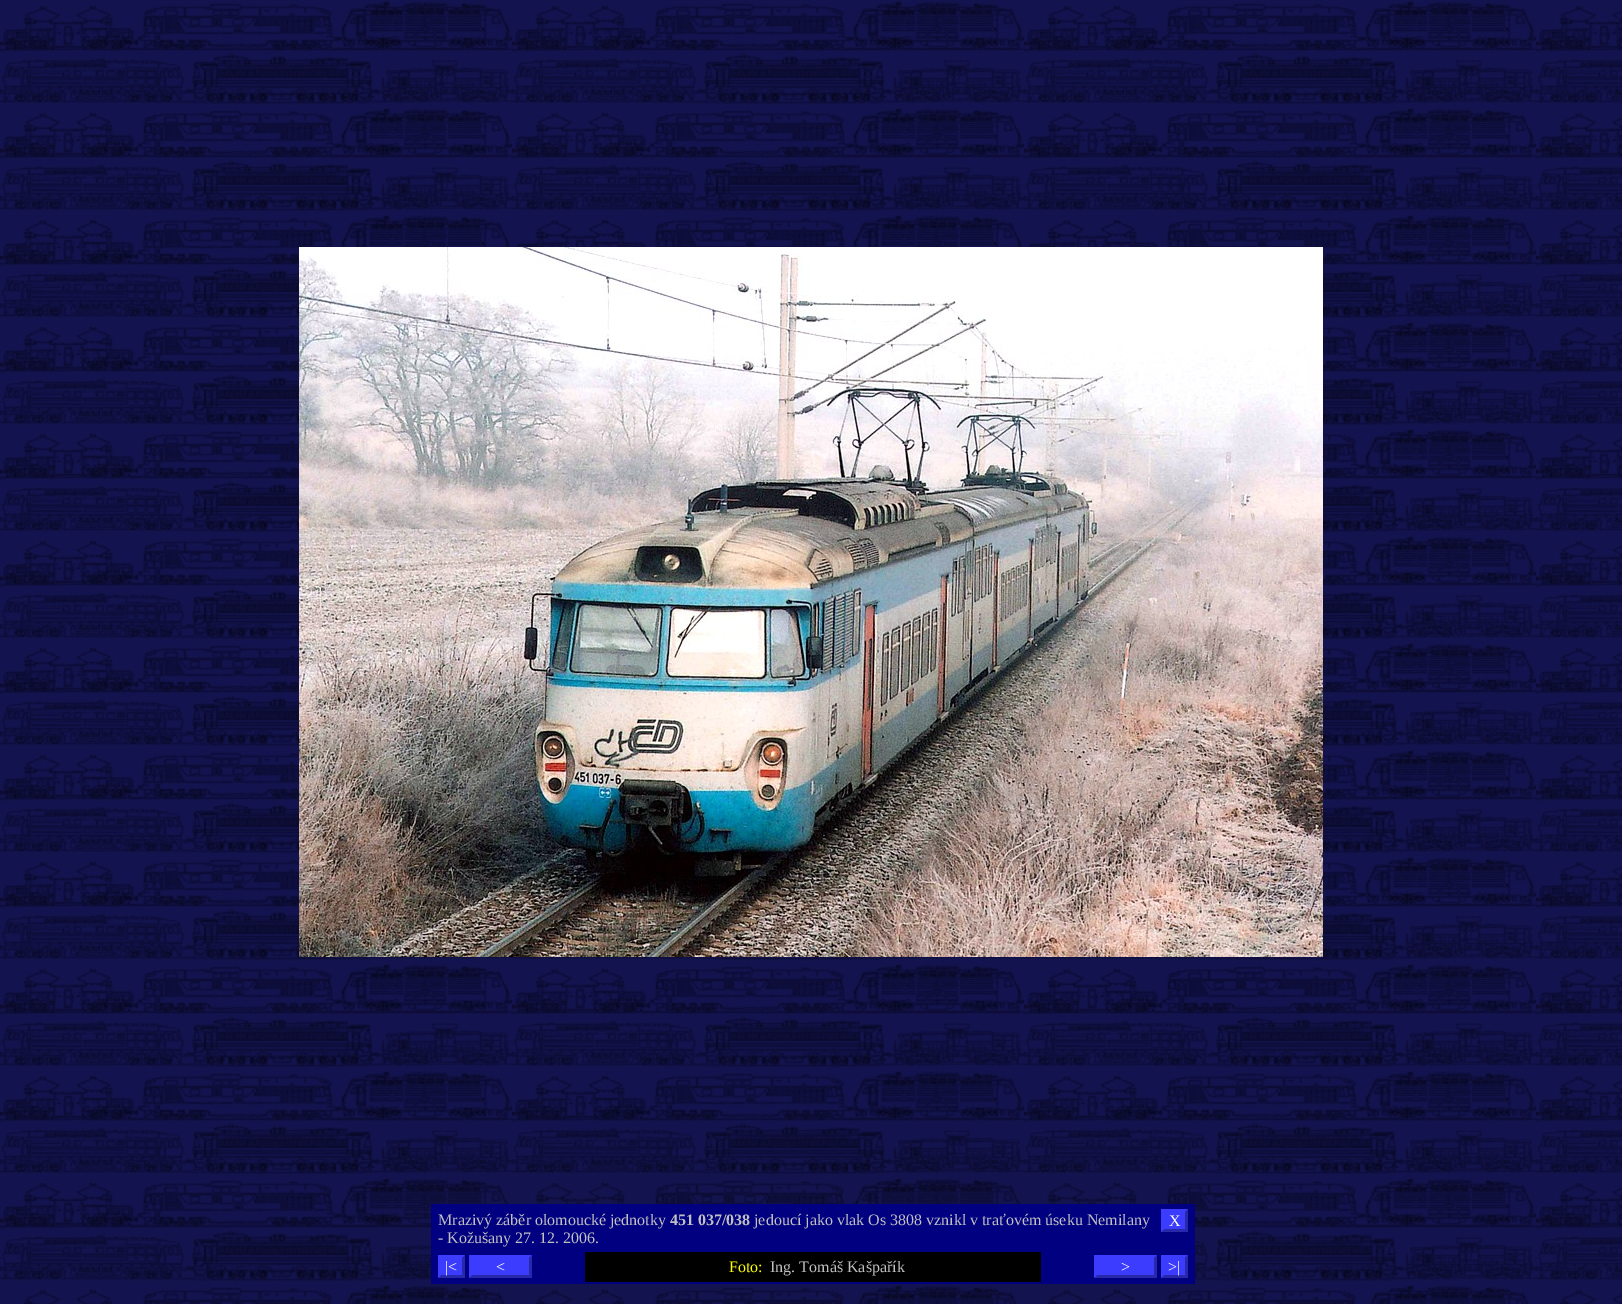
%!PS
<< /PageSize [1622 1304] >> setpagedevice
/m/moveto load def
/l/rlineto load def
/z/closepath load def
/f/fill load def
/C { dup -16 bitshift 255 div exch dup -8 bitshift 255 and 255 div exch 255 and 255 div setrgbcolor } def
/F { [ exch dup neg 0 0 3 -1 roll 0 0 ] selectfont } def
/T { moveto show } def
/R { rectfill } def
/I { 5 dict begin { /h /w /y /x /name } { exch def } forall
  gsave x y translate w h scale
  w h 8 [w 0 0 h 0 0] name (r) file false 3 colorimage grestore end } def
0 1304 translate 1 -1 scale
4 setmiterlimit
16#FFFFFF C
0 0 1622 1304 R
(1.rgb) 0 0 1622 1304 I
(2.rgb) 299 247 1024 710 I
16#000080 C
431 1204 764 80 R
/LiberationSerif-Regular 16 F
16#C0C0C0 C
(Mrazivý záběr olomoucké jednotky) 438 1225 T
/LiberationSerif-Bold 16 F
(451 037/038) 670 1225 T
/LiberationSerif-Regular 16 F
(jedoucí jako vlak Os 3808 vznikl v traťovém úseku Nemilany) 754 1225 T
(- Kožušany 27. 12. 2006.) 438 1243 T
16#3C3CFF C
1161 1209 27 23 R
16#FFFFFF C
(X) 1169 1226 T
16#2828AA C
1188 1209 m 0 23 l -3 -3 l 0 -17 l z f
1188 1232 m -27 0 l 3 -3 l 21 0 l z f
16#3C3CFF C
1161 1232 m 0 -23 l 3 3 l 0 17 l z f
438 1255 27 23 R
16#2828AA C
465 1255 m 0 23 l -3 -3 l 0 -17 l z f
465 1278 m -27 0 l 3 -3 l 21 0 l z f
16#FFFFFF C
(|<) 445 1272 T
16#3C3CFF C
438 1278 m 0 -23 l 3 3 l 0 17 l z f
469 1255 63 23 R
16#FFFFFF C
(<) 496 1272 T
16#2828AA C
532 1255 m 0 23 l -3 -3 l 0 -17 l z f
532 1278 m -63 0 l 3 -3 l 57 0 l z f
16#3C3CFF C
469 1278 m 0 -23 l 3 3 l 0 17 l z f
16#000000 C
585 1252 456 30 R
16#FFFF00 C
(Foto:) 729 1272 T
16#C0C0C0 C
(Ing. Tomáš Kašpařík) 770 1272 T
16#3C3CFF C
1094 1255 63 23 R
16#FFFFFF C
(>) 1121 1272 T
16#2828AA C
1157 1255 m 0 23 l -3 -3 l 0 -17 l z f
1157 1278 m -63 0 l 3 -3 l 57 0 l z f
16#3C3CFF C
1094 1278 m 0 -23 l 3 3 l 0 17 l z f
1161 1255 27 23 R
16#2828AA C
1188 1255 m 0 23 l -3 -3 l 0 -17 l z f
1188 1278 m -27 0 l 3 -3 l 21 0 l z f
16#FFFFFF C
(>|) 1168 1272 T
16#3C3CFF C
1161 1278 m 0 -23 l 3 3 l 0 17 l z f
showpage
